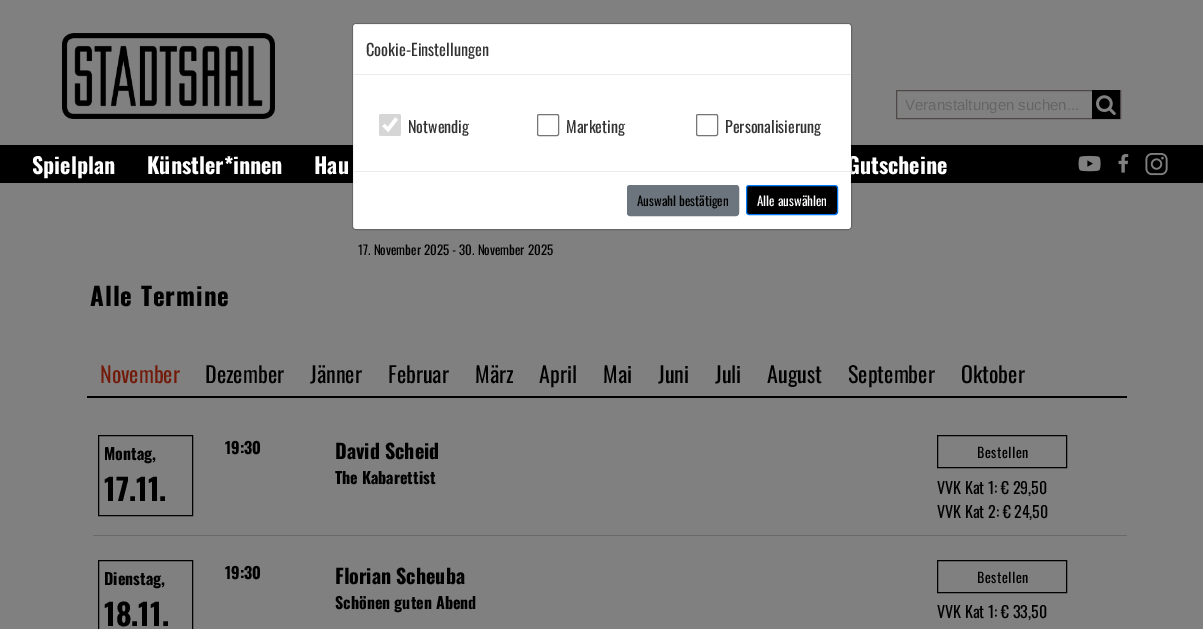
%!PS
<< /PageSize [1203 629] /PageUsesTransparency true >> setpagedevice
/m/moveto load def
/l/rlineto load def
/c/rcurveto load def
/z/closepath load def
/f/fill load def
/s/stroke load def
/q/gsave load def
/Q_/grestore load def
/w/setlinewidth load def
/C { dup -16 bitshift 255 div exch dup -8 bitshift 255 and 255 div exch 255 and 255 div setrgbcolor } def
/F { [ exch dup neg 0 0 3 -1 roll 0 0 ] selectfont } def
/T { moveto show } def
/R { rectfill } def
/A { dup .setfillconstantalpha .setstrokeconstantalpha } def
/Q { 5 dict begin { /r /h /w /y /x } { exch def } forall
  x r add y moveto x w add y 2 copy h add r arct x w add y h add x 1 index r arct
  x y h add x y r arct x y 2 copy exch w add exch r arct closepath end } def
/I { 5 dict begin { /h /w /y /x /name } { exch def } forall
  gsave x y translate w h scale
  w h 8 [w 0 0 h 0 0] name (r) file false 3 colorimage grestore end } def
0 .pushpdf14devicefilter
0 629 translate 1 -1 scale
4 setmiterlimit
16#808080 C
0 0 1203 629 R
16#000000 C
0 145 1203 38 R
16#FFFFFF C
353 24 498 205 3 Q f
/Oswald-Bold 22 F
(Gutscheine) 847 174 T
0.2 A
16#000000 C
352.5 23.5 499 206 3.5 Q s
1 A
16#E9ECEF C
353 74 498 1 R
/Oswald-Regular 16.25 F
16#333333 C
(Cookie-Einstellungen) 366 56 T
16#D6D6D6 C
379 114 22 22 2 Q f
16#FFFFFF C
3.5 w
383.5 125 m 4.5 4.5 l 8.5 -11 l s
/Oswald-Regular 16 F
16#333333 C
(Notwendig) 408 133 T
16#767676 C
1 w
537.5 114.5 21 21 1.5 Q s
16#333333 C
(Marketing) 566 133 T
16#767676 C
696.5 114.5 21 21 1.5 Q s
16#333333 C
(Personalisierung) 725 133 T
16#E9ECEF C
353 171 498 1 R
16#6C757D C
627.5 185.5 111 30 2.5 Q q f Q_
s
/Oswald-Regular 13 F
16#000000 C
(Auswahl bestätigen) 637 206 T
746.5 185.5 91 29 2.5 Q q f Q_
16#007BFF C
s
16#FFFFFF C
(Alle auswählen) 757 206 T
(1.rgb) 62 33 213 86 I
16#504847 C
896.5 90.5 224 28 rectstroke
q
905 96 212 17 rectclip
/LiberationSans-Regular 15 F
16#656565 C
(Veranstaltungen suchen...) 905 110 T
Q_
16#000000 C
1092 90 28 29 R
(2.rgb) 1096 95 20 20 I
/Oswald-Bold 22 F
16#FFFFFF C
(Spielplan) 32 174 T
(Künstler*innen) 147 174 T
(Hau) 314 174 T
(3.rgb) 1078 155 23 17 I
(4.rgb) 1118 154 11 19 I
(5.rgb) 1145 153 23 23 I
/Oswald-Regular 13 F
16#000000 C
(17. November 2025 - 30. November 2025) 358 255 T
/Oswald-Bold 25 F
90 306 m 1 0 (Alle Termine) ashow
87 396 1040 2 R
16#808080 C
90 350 m 99 0 l 1.5 0 3 1.5 3 3 c 0 44 l -105 0 l 0 -44 l 0 -1.5 1.5 -3 3 -3 c z f
16#000000 C
87 396 105 1 R
/Oswald-Regular 22 F
16#721B0B C
(November) 100 383 T
16#000000 C
(Dezember) 205 383 T
(Jänner) 310 383 T
(Februar) 388 383 T
(März) 475 383 T
(April) 539 383 T
(Mai) 603 383 T
(Juni) 658 383 T
(Juli) 715 383 T
(August) 767 383 T
(September) 848 383 T
(Oktober) 961 383 T
16#676A6D C
93 535 1034 1 R
16#000000 C
98.5 435.5 94 80 rectstroke
/Oswald-Bold 16 F
(Montag,) 104 460 T
/Oswald-Bold 30 F
(17.11.) 104 501 T
/Oswald-Bold 16 F
(19:30) 225 454 T
/Oswald-Bold 20 F
(David Scheid) 335 459 T
/Oswald-Bold 16 F
(The Kabarettist) 335 484 T
937.5 435.5 129 32 rectstroke
/Oswald-Regular 14 F
977 458 m .5 0 (Bestellen) ashow
/Oswald-Regular 16 F
(VVK Kat 1: € 29,50) 937 494 T
(VVK Kat 2: € 24,50) 937 518 T
98.5 560.5 94 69 rectstroke
/Oswald-Bold 16 F
(Dienstag,) 104 585 T
/Oswald-Bold 30 F
(18.11.) 104 626 T
/Oswald-Bold 16 F
(19:30) 225 579 T
/Oswald-Bold 20 F
(Florian Scheuba) 335 584 T
/Oswald-Bold 16 F
(Schönen guten Abend) 335 609 T
937.5 560.5 129 32 rectstroke
/Oswald-Regular 14 F
977 583 m .5 0 (Bestellen) ashow
/Oswald-Regular 16 F
(VVK Kat 1: € 33,50) 937 618 T
.poppdf14devicefilter showpage
